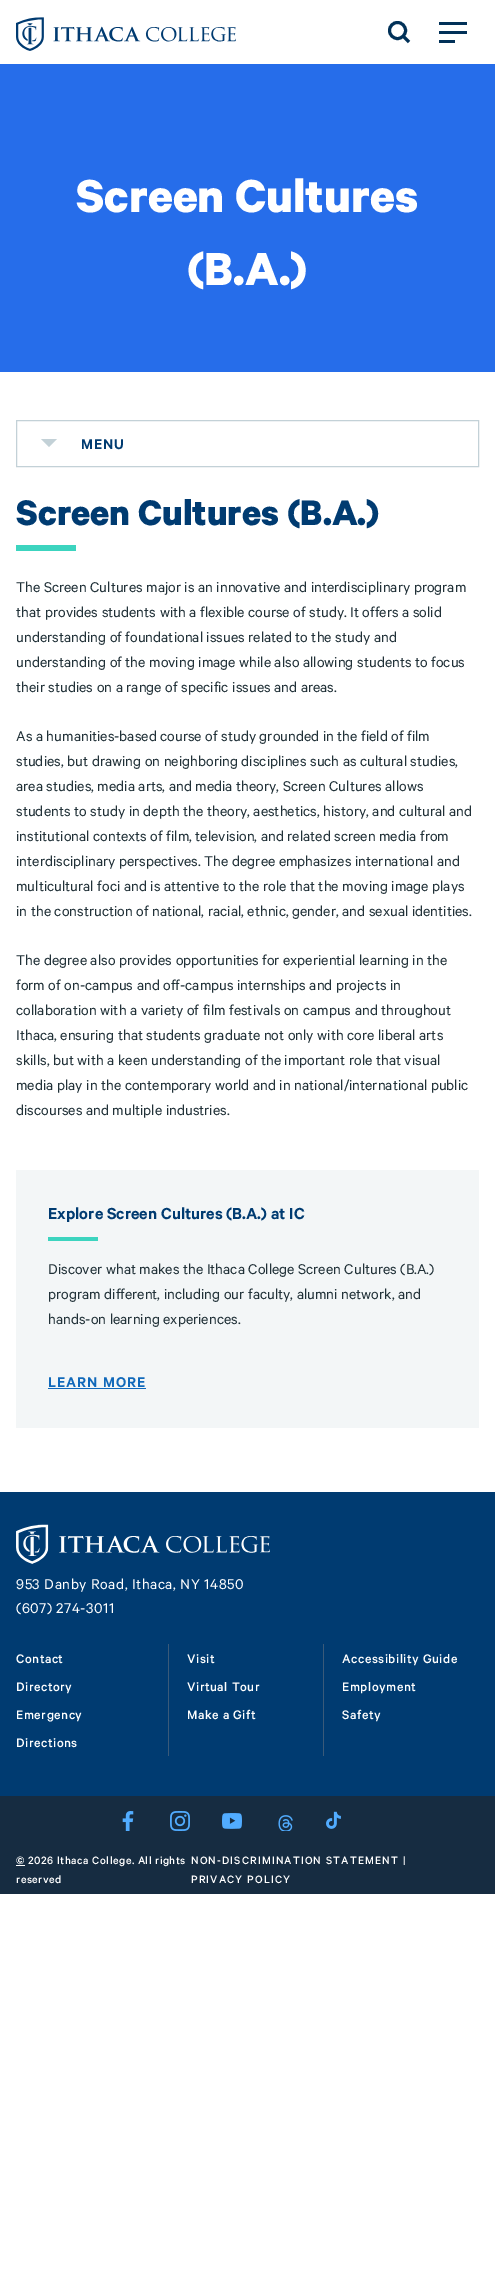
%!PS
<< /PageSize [495 2283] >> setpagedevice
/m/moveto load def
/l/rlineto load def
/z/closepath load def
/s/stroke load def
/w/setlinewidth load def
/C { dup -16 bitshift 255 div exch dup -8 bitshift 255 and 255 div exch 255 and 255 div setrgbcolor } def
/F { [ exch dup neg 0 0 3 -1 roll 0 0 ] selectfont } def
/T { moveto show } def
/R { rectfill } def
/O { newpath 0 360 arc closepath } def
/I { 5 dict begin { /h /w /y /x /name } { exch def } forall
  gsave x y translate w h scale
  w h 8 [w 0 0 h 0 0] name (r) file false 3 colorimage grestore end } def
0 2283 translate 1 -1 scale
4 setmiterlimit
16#FFFFFF C
0 0 495 2283 R
(1.rgb) 16 17 220 34 I
16#013158 C
3 w
397.5 30.5 8 O s
409 42 m -6.5 -6.5 l s
439 22 28 3 R
439 31 28 3 R
439 40 16 3 R
16#266DEA C
0 64 495 308 R
/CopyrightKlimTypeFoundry-Bold 52 F
16#FFFFFF C
(Screen Cultures) 76 212 T
(\(B.A.\)) 187 285 T
16#C3D1D7 C
1 w
16.5 420.5 462 46 rectstroke
49 447 m -8 -8 l 16 0 l z eofill
/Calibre-SemiBold 16 F
16#003B71 C
81 449 m 1 0 (MENU) ashow
/CopyrightKlimTypeFoundry-Bold 40 F
(Screen Cultures \(B.A.\)) 16 525 T
16#3CD4BF C
16 545 60 6 R
/CopyrightKlimTypeFoundry-Regular 16 F
16#213138 C
(The Screen Cultures major is an innovative and interdisciplinary program) 16 592 T
(that provides students with a flexible course of study. It offers a solid) 16 617 T
(understanding of foundational issues related to the study and) 16 642 T
(understanding of the moving image while also allowing students to focus) 16 667 T
(their studies on a range of specific issues and areas.) 16 692 T
(As a humanities-based course of study grounded in the field of film) 16 741 T
(studies, but drawing on neighboring disciplines such as cultural studies,) 16 766 T
(area studies, media arts, and media theory, Screen Cultures allows) 16 791 T
(students to study in depth the theory, aesthetics, history, and cultural and) 16 816 T
(institutional contexts of film, television, and related screen media from) 16 841 T
(interdisciplinary perspectives. The degree emphasizes international and) 16 866 T
(multicultural foci and is attentive to the role that the moving image plays) 16 891 T
(in the construction of national, racial, ethnic, gender, and sexual identities.) 16 916 T
(The degree also provides opportunities for experiential learning in the) 16 965 T
(form of on-campus and off-campus internships and projects in) 16 990 T
(collaboration with a variety of film festivals on campus and throughout) 16 1015 T
(Ithaca, ensuring that students graduate not only with core liberal arts) 16 1040 T
(skills, but with a keen understanding of the important role that visual) 16 1065 T
(media play in the contemporary world and in national/international public) 16 1090 T
(discourses and multiple industries.) 16 1115 T
16#F3F6F7 C
16 1170 463 258 R
/Calibre-SemiBold 18 F
16#003B71 C
(Explore Screen Cultures \(B.A.\) at IC) 48 1219 T
16#3CD4BF C
48 1237 50 4 R
/CopyrightKlimTypeFoundry-Regular 16 F
16#213138 C
(Discover what makes the Ithaca College Screen Cultures \(B.A.\)) 48 1274 T
(program different, including our faculty, alumni network, and) 48 1299 T
(hands-on learning experiences.) 48 1324 T
/Calibre-SemiBold 16 F
16#1169BA C
48 1387 m 1 0 (LEARN MORE) ashow
48 1388 98 1 R
16#003B71 C
0 1492 495 304 R
(2.rgb) 16 1524 254 40 I
/CopyrightKlimTypeFoundry-Regular 16 F
16#FFFFFF C
16 1589 m .5 0 (953 Danby Road, Ithaca, NY 14850) ashow
16 1613 m .5 0 (\(607\) 274-3011) ashow
16#3A5A79 C
168 1644 1 112 R
/Calibre-Medium 14 F
16#FFFFFF C
16 1663 m .5 0 (Contact) ashow
16 1691 m .5 0 (Directory) ashow
16 1719 m .5 0 (Emergency) ashow
16 1747 m .5 0 (Directions) ashow
16#3A5A79 C
323 1644 1 112 R
16#FFFFFF C
187 1663 m .5 0 (Visit) ashow
187 1691 m .5 0 (Virtual Tour) ashow
187 1719 m .5 0 (Make a Gift) ashow
342 1663 m .5 0 (Accessibility Guide) ashow
342 1691 m .5 0 (Employment) ashow
342 1719 m .5 0 (Safety) ashow
16#162C41 C
0 1796 495 98 R
(3.rgb) 122 1811 12 20 I
(4.rgb) 170 1811 20 20 I
(5.rgb) 222 1813 20 16 I
(6.rgb) 278 1815 15 16 I
(7.rgb) 326 1811 15 18 I
16#FFFFFF C
16 1865 9 1 R
/Calibre-Medium 12 F
16 1864 m .5 0 (© 2026 Ithaca College. All rights) ashow
16 1883 m .5 0 (reserved) ashow
191 1864 m 1.1 0 (NON-DISCRIMINATION STATEMENT) ashow
/CopyrightKlimTypeFoundry-Regular 12 F
403 1864 m 1.1 0 (|) ashow
/Calibre-Medium 12 F
191 1883 m 1.1 0 (PRIVACY POLICY) ashow
showpage
